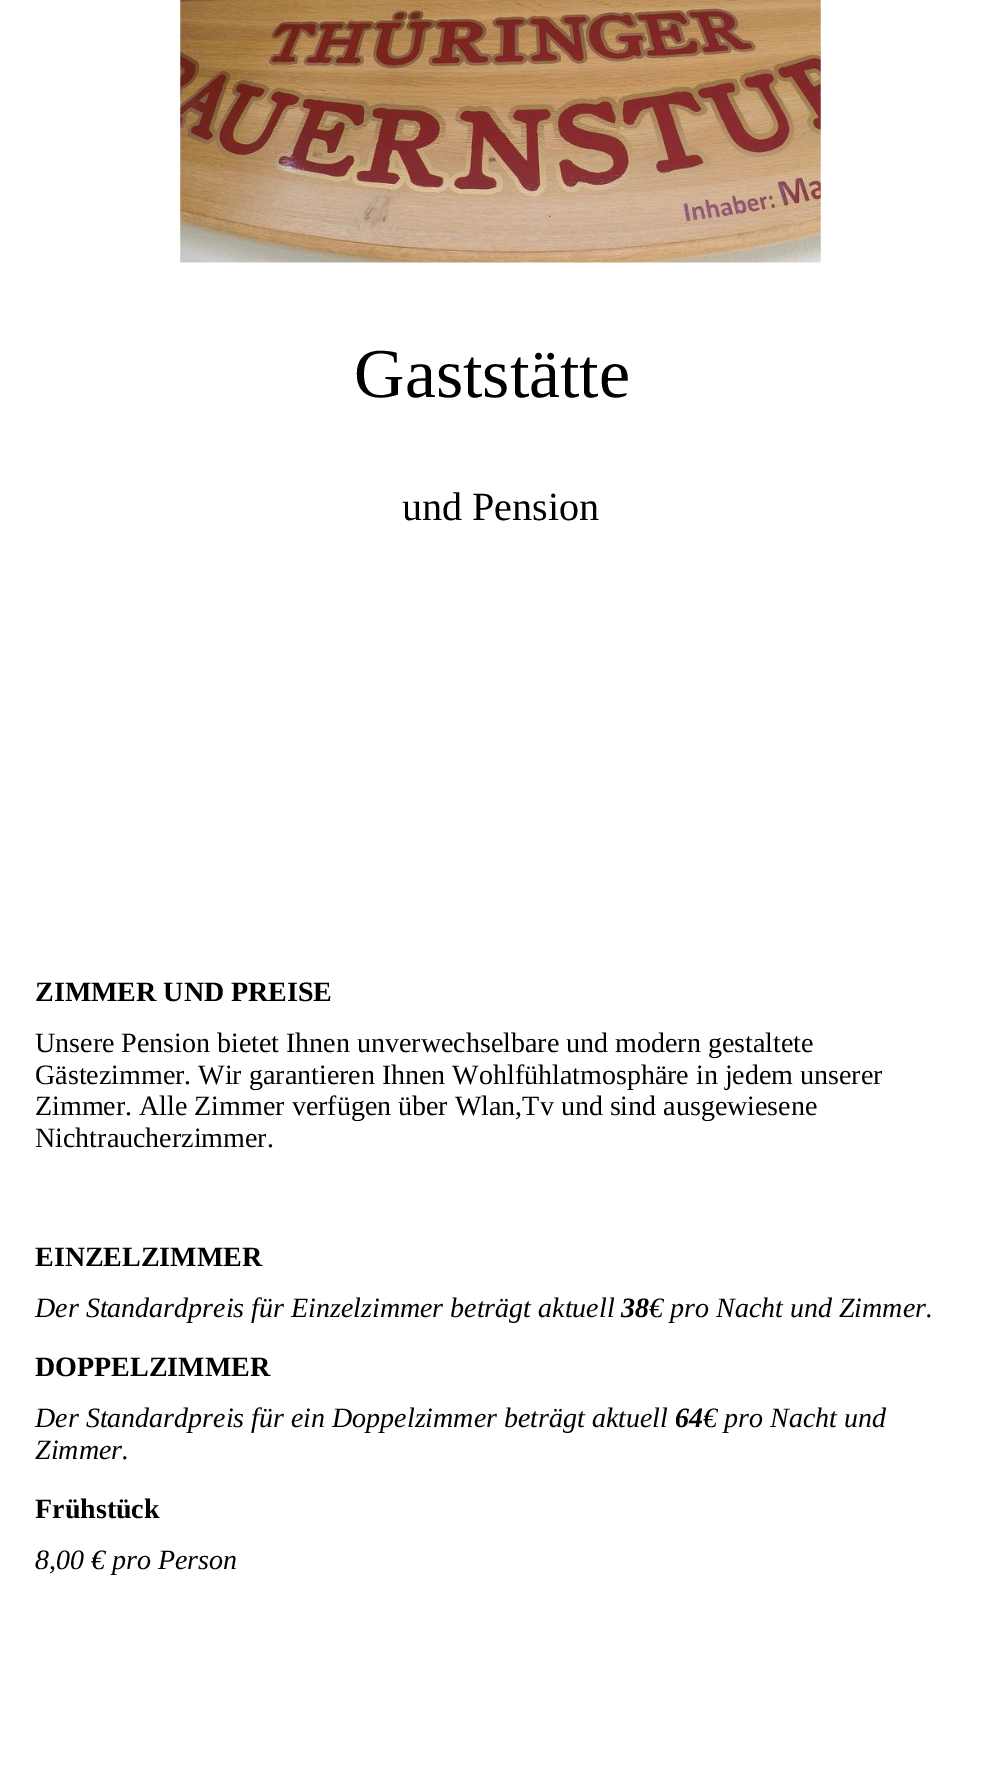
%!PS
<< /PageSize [1000 1787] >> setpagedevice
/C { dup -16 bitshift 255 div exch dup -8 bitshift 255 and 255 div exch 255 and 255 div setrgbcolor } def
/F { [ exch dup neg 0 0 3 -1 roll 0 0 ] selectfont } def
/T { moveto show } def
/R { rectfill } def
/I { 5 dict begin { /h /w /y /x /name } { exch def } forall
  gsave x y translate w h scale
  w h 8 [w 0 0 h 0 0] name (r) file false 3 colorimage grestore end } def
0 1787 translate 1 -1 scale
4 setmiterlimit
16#FFFFFF C
0 0 1000 1787 R
(1.rgb) 180 0 641 263 I
/LiberationSerif-Regular 70 F
16#000000 C
(Gaststätte) 354 397 T
/LiberationSerif-Regular 40 F
(und Pension) 402 520 T
/LiberationSerif-Bold 28 F
(ZIMMER UND PREISE) 35 1001 T
/LiberationSerif-Regular 28 F
(Unsere Pension bietet Ihnen unverwechselbare und modern gestaltete) 35 1052 T
(Gästezimmer. Wir garantieren Ihnen Wohlfühlatmosphäre in jedem unserer) 35 1084 T
(Zimmer. Alle Zimmer verfügen über Wlan,Tv und sind ausgewiesene) 35 1115 T
(Nichtraucherzimmer.) 35 1147 T
/LiberationSerif-Bold 28 F
(EINZELZIMMER) 35 1266 T
/LiberationSerif-Italic 28 F
(Der Standardpreis für Einzelzimmer beträgt aktuell) 35 1317 T
/LiberationSerif-BoldItalic 28 F
(38) 621 1317 T
/LiberationSerif-Italic 28 F
(€ pro Nacht und Zimmer.) 649 1317 T
/LiberationSerif-Bold 28 F
(DOPPELZIMMER) 35 1376 T
/LiberationSerif-Italic 28 F
(Der Standardpreis für ein Doppelzimmer beträgt aktuell) 35 1427 T
/LiberationSerif-BoldItalic 28 F
(64) 675 1427 T
/LiberationSerif-Italic 28 F
(€ pro Nacht und) 703 1427 T
(Zimmer.) 35 1459 T
/LiberationSerif-Bold 28 F
(Frühstück) 35 1518 T
/LiberationSerif-Italic 28 F
(8,00 € pro Person) 35 1569 T
showpage
